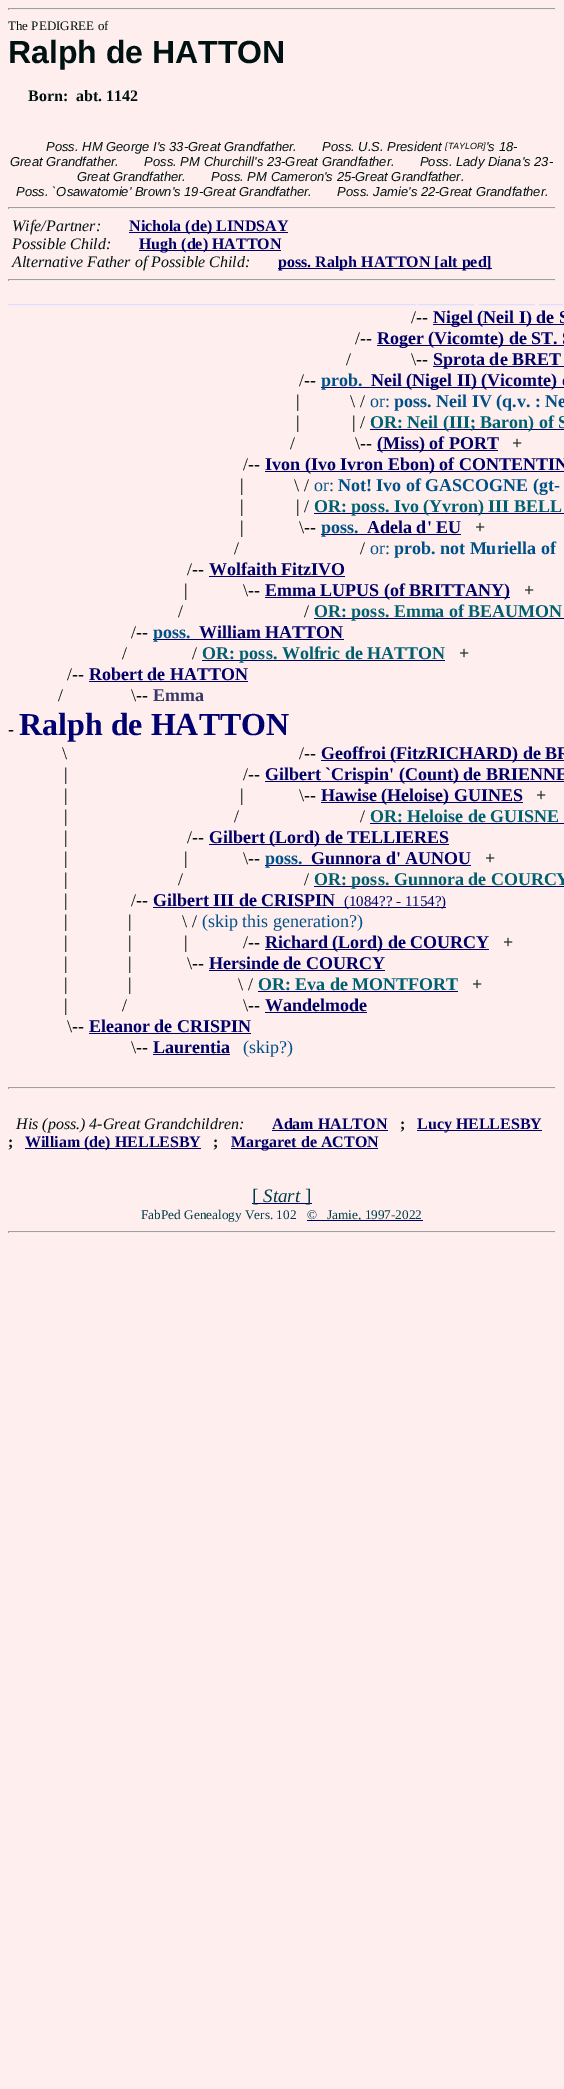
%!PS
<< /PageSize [564 2089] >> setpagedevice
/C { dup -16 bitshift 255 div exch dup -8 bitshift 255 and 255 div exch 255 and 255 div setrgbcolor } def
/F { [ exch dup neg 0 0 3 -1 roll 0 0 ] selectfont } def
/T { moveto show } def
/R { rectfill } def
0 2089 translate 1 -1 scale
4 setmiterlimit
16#FFEEEE C
0 0 564 2089 R
16#9F9F9F C
8 8 548 1 R
16#EEEEEE C
555 8 1 2 R
8 9 548 1 R
16#9F9F9F C
8 8 1 2 R
/LiberationSerif-Regular 13 F
16#001111 C
(The PEDIGREE of) 8 30 T
/LiberationSans-Bold 32 F
(Ralph de HATTON) 8 63 T
/LiberationSerif-Bold 16 F
(Born:) 28 101 T
(abt. 1142) 76 101 T
/LiberationSans-Italic 13 F
(Poss. HM George I's 33-Great Grandfather.       Poss. U.S. President) 46 151 T
/LiberationSans-Italic 9 F
([TAYLOR]) 445 149 T
/LiberationSans-Italic 13 F
('s 18-) 486 151 T
(Great Grandfather.       Poss. PM Churchill's 23-Great Grandfather.       Poss. Lady Diana's 23-) 10 166 T
(Great Grandfather.       Poss. PM Cameron's 25-Great Grandfather.) 77 181 T
(Poss. `Osawatomie' Brown's 19-Great Grandfather.       Poss. Jamie's 22-Great Grandfather.) 16 196 T
16#9F9F9F C
8 207 548 1 R
16#EEEEEE C
555 207 1 2 R
8 208 548 1 R
16#9F9F9F C
8 207 1 2 R
/LiberationSerif-Italic 16 F
16#001111 C
(Wife/Partner:) 12 231 T
16#000066 C
129 232 159 1 R
/LiberationSerif-Bold 16 F
(Nichola \(de\) LINDSAY) 129 231 T
/LiberationSerif-Italic 16 F
16#001111 C
(Possible Child:) 12 249 T
16#000066 C
139 250 142 1 R
/LiberationSerif-Bold 16 F
(Hugh \(de\) HATTON) 139 249 T
/LiberationSerif-Italic 16 F
16#001111 C
(Alternative Father of Possible Child:) 12 267 T
16#000066 C
278 268 214 1 R
/LiberationSerif-Bold 16 F
(poss. Ralph HATTON [alt ped]) 278 267 T
16#9F9F9F C
8 279 548 1 R
16#EEEEEE C
555 279 1 2 R
8 280 548 1 R
16#9F9F9F C
8 279 1 2 R
16#DDDDFF C
(___________________________________________________) 8 303 T
(_______) 418 303 T
(_______) 479 303 T
(___) 539 303 T
/LiberationSerif-Regular 18 F
16#001111 C
(/--) 411 323 T
16#000066 C
433 324 131 1 R
/LiberationSerif-Bold 18 F
(Nigel \(Neil I\) de S) 433 323 T
/LiberationSerif-Regular 18 F
16#001111 C
(/--) 355 344 T
16#000066 C
377 345 187 1 R
/LiberationSerif-Bold 18 F
(Roger \(Vicomte\) de ST. S) 377 344 T
/LiberationSerif-Regular 18 F
16#001111 C
(/) 346 365 T
(\\--) 411 365 T
16#000066 C
433 366 131 1 R
/LiberationSerif-Bold 18 F
(Sprota de BRET) 433 365 T
/LiberationSerif-Regular 18 F
16#001111 C
(/--) 299 386 T
16#000066 C
321 387 243 1 R
/LiberationSerif-Bold 18 F
16#005088 C
(prob.) 321 386 T
16#000066 C
(Neil \(Nigel II\) \(Vicomte\) d) 371 386 T
/LiberationSerif-Regular 18 F
16#001111 C
(|) 296 407 T
(\\ /) 350 407 T
16#005088 C
(or:) 370 407 T
/LiberationSerif-Bold 18 F
(poss. Neil IV \(q.v. : Ne) 394 407 T
/LiberationSerif-Regular 18 F
16#001111 C
(|) 296 428 T
(| /) 352 428 T
16#000066 C
370 429 194 1 R
/LiberationSerif-Bold 18 F
16#006070 C
(OR: Neil \(III; Baron\) of S) 370 428 T
/LiberationSerif-Regular 18 F
16#001111 C
(/) 290 449 T
(\\--) 355 449 T
16#000066 C
377 450 121 1 R
/LiberationSerif-Bold 18 F
(\(Miss\) of PORT) 377 449 T
/LiberationSerif-Regular 18 F
16#001111 C
(+) 512 449 T
(/--) 243 470 T
16#000066 C
265 471 299 1 R
/LiberationSerif-Bold 18 F
(Ivon \(Ivo Ivron Ebon\) of CONTENTIN) 265 470 T
/LiberationSerif-Regular 18 F
16#001111 C
(|) 240 491 T
(\\ /) 294 491 T
16#005088 C
(or:) 314 491 T
/LiberationSerif-Bold 18 F
(Not! Ivo of GASCOGNE \(gt-) 338 491 T
/LiberationSerif-Regular 18 F
16#001111 C
(|) 240 512 T
(| /) 296 512 T
16#000066 C
314 513 250 1 R
/LiberationSerif-Bold 18 F
16#006070 C
(OR: poss. Ivo \(Yvron\) III BELL) 314 512 T
/LiberationSerif-Regular 18 F
16#001111 C
(|) 240 533 T
(\\--) 299 533 T
16#000066 C
321 534 140 1 R
/LiberationSerif-Bold 18 F
16#005088 C
(poss.) 321 533 T
16#000066 C
(Adela d' EU) 367 533 T
/LiberationSerif-Regular 18 F
16#001111 C
(+) 475 533 T
(/) 234 554 T
(/) 360 554 T
16#005088 C
(or:) 370 554 T
/LiberationSerif-Bold 18 F
(prob. not Muriella of) 394 554 T
/LiberationSerif-Regular 18 F
16#001111 C
(/--) 187 575 T
/LiberationSerif-Bold 18 F
16#000066 C
(Wolfaith FitzIVO) 209 575 T
209 576 136 1 R
/LiberationSerif-Regular 18 F
16#001111 C
(|) 184 596 T
(\\--) 243 596 T
16#000066 C
265 597 245 1 R
/LiberationSerif-Bold 18 F
(Emma LUPUS \(of BRITTANY\)) 265 596 T
/LiberationSerif-Regular 18 F
16#001111 C
(+) 524 596 T
(/) 178 617 T
(/) 304 617 T
16#000066 C
314 618 250 1 R
/LiberationSerif-Bold 18 F
16#006070 C
(OR: poss. Emma of BEAUMON) 314 617 T
/LiberationSerif-Regular 18 F
16#001111 C
(/--) 131 638 T
16#000066 C
153 639 191 1 R
/LiberationSerif-Bold 18 F
16#005088 C
(poss.) 153 638 T
16#000066 C
(William HATTON) 199 638 T
/LiberationSerif-Regular 18 F
16#001111 C
(/) 122 659 T
(/) 192 659 T
16#000066 C
202 660 243 1 R
/LiberationSerif-Bold 18 F
16#006070 C
(OR: poss. Wolfric de HATTON) 202 659 T
/LiberationSerif-Regular 18 F
16#001111 C
(+) 459 659 T
(/--) 67 680 T
/LiberationSerif-Bold 18 F
16#000066 C
(Robert de HATTON) 89 680 T
89 681 159 1 R
/LiberationSerif-Regular 18 F
16#001111 C
(/) 58 701 T
(\\--) 131 701 T
/LiberationSerif-Bold 18 F
16#383868 C
(Emma) 153 701 T
/LiberationSerif-Regular 18 F
16#001111 C
(-) 8 735 T
/LiberationSerif-Bold 32 F
16#000070 C
(Ralph de HATTON) 19 735 T
/LiberationSerif-Regular 18 F
16#001111 C
(\\) 62 759 T
(/--) 299 759 T
16#000066 C
321 760 243 1 R
/LiberationSerif-Bold 18 F
(Geoffroi \(FitzRICHARD\) de BR) 321 759 T
/LiberationSerif-Regular 18 F
16#001111 C
(|) 64 780 T
(/--) 243 780 T
16#000066 C
265 781 299 1 R
/LiberationSerif-Bold 18 F
(Gilbert `Crispin' \(Count\) de BRIENNE) 265 780 T
/LiberationSerif-Regular 18 F
16#001111 C
(|) 64 801 T
(|) 240 801 T
(\\--) 299 801 T
16#000066 C
321 802 202 1 R
/LiberationSerif-Bold 18 F
(Hawise \(Heloise\) GUINES) 321 801 T
/LiberationSerif-Regular 18 F
16#001111 C
(+) 536 801 T
(|) 64 822 T
(/) 234 822 T
(/) 360 822 T
/LiberationSerif-Bold 18 F
16#006070 C
(OR: Heloise de GUISNE) 370 822 T
16#000066 C
370 823 194 1 R
/LiberationSerif-Regular 18 F
16#001111 C
(|) 64 843 T
(/--) 187 843 T
16#000066 C
209 844 240 1 R
/LiberationSerif-Bold 18 F
(Gilbert \(Lord\) de TELLIERES) 209 843 T
/LiberationSerif-Regular 18 F
16#001111 C
(|) 64 864 T
(|) 184 864 T
(\\--) 243 864 T
16#000066 C
265 865 206 1 R
/LiberationSerif-Bold 18 F
16#005088 C
(poss.) 265 864 T
16#000066 C
(Gunnora d' AUNOU) 311 864 T
/LiberationSerif-Regular 18 F
16#001111 C
(+) 485 864 T
(|) 64 885 T
(/) 178 885 T
(/) 304 885 T
16#000066 C
314 886 250 1 R
/LiberationSerif-Bold 18 F
16#006070 C
(OR: poss. Gunnora de COURCY) 314 885 T
/LiberationSerif-Regular 18 F
16#001111 C
(|) 64 906 T
(/--) 131 906 T
/LiberationSerif-Bold 18 F
16#000066 C
(Gilbert III de CRISPIN) 153 906 T
153 907 293 1 R
/LiberationSerif-Regular 15 F
(\(1084?? - 1154?\)) 344 906 T
/LiberationSerif-Regular 18 F
16#001111 C
(|) 64 927 T
(|) 128 927 T
(\\ /) 182 927 T
16#005088 C
(\(skip this generation?\)) 202 927 T
16#001111 C
(|) 64 948 T
(|) 128 948 T
(|) 184 948 T
(/--) 243 948 T
16#000066 C
265 949 224 1 R
/LiberationSerif-Bold 18 F
(Richard \(Lord\) de COURCY) 265 948 T
/LiberationSerif-Regular 18 F
16#001111 C
(+) 503 948 T
(|) 64 969 T
(|) 128 969 T
(\\--) 187 969 T
/LiberationSerif-Bold 18 F
16#000066 C
(Hersinde de COURCY) 209 969 T
209 970 176 1 R
/LiberationSerif-Regular 18 F
16#001111 C
(|) 64 990 T
(|) 128 990 T
(\\ /) 238 990 T
/LiberationSerif-Bold 18 F
16#006070 C
(OR: Eva de MONTFORT) 258 990 T
16#000066 C
258 991 200 1 R
/LiberationSerif-Regular 18 F
16#001111 C
(+) 472 990 T
(|) 64 1011 T
(/) 122 1011 T
(\\--) 243 1011 T
/LiberationSerif-Bold 18 F
16#000066 C
(Wandelmode) 265 1011 T
265 1012 102 1 R
/LiberationSerif-Regular 18 F
16#001111 C
(\\--) 67 1032 T
/LiberationSerif-Bold 18 F
16#000066 C
(Eleanor de CRISPIN) 89 1032 T
89 1033 162 1 R
/LiberationSerif-Regular 18 F
16#001111 C
(\\--) 131 1053 T
/LiberationSerif-Bold 18 F
16#000066 C
(Laurentia) 153 1053 T
153 1054 77 1 R
/LiberationSerif-Regular 18 F
16#005088 C
(\(skip?\)) 243 1053 T
16#9F9F9F C
8 1087 548 1 R
16#EEEEEE C
555 1087 1 2 R
8 1088 548 1 R
16#9F9F9F C
8 1087 1 2 R
/LiberationSerif-Italic 16 F
16#001111 C
(His \(poss.\) 4-Great Grandchildren:) 16 1129 T
/LiberationSerif-Bold 16 F
16#000066 C
(Adam HALTON) 272 1129 T
272 1130 116 1 R
16#001111 C
(;) 400 1129 T
16#000066 C
417 1130 125 1 R
(Lucy HELLESBY) 417 1129 T
16#001111 C
(;) 8 1147 T
16#000066 C
25 1148 176 1 R
(William \(de\) HELLESBY) 25 1147 T
16#001111 C
(;) 213 1147 T
16#000066 C
231 1148 147 1 R
(Margaret de ACTON) 231 1147 T
252 1203 60 1 R
/LiberationSerif-Regular 19 F
16#003C48 C
([) 252 1202 T
/LiberationSerif-Italic 19 F
(Start) 263 1202 T
/LiberationSerif-Regular 19 F
(]) 305 1202 T
/LiberationSerif-Regular 13.25 F
(FabPed Genealogy Vers. 102) 141 1219 T
16#000066 C
307 1220 116 1 R
16#003C48 C
(©   Jamie, 1997-2022) 307 1219 T
16#9F9F9F C
8 1231 548 1 R
16#EEEEEE C
555 1231 1 2 R
8 1232 548 1 R
16#9F9F9F C
8 1231 1 2 R
showpage
